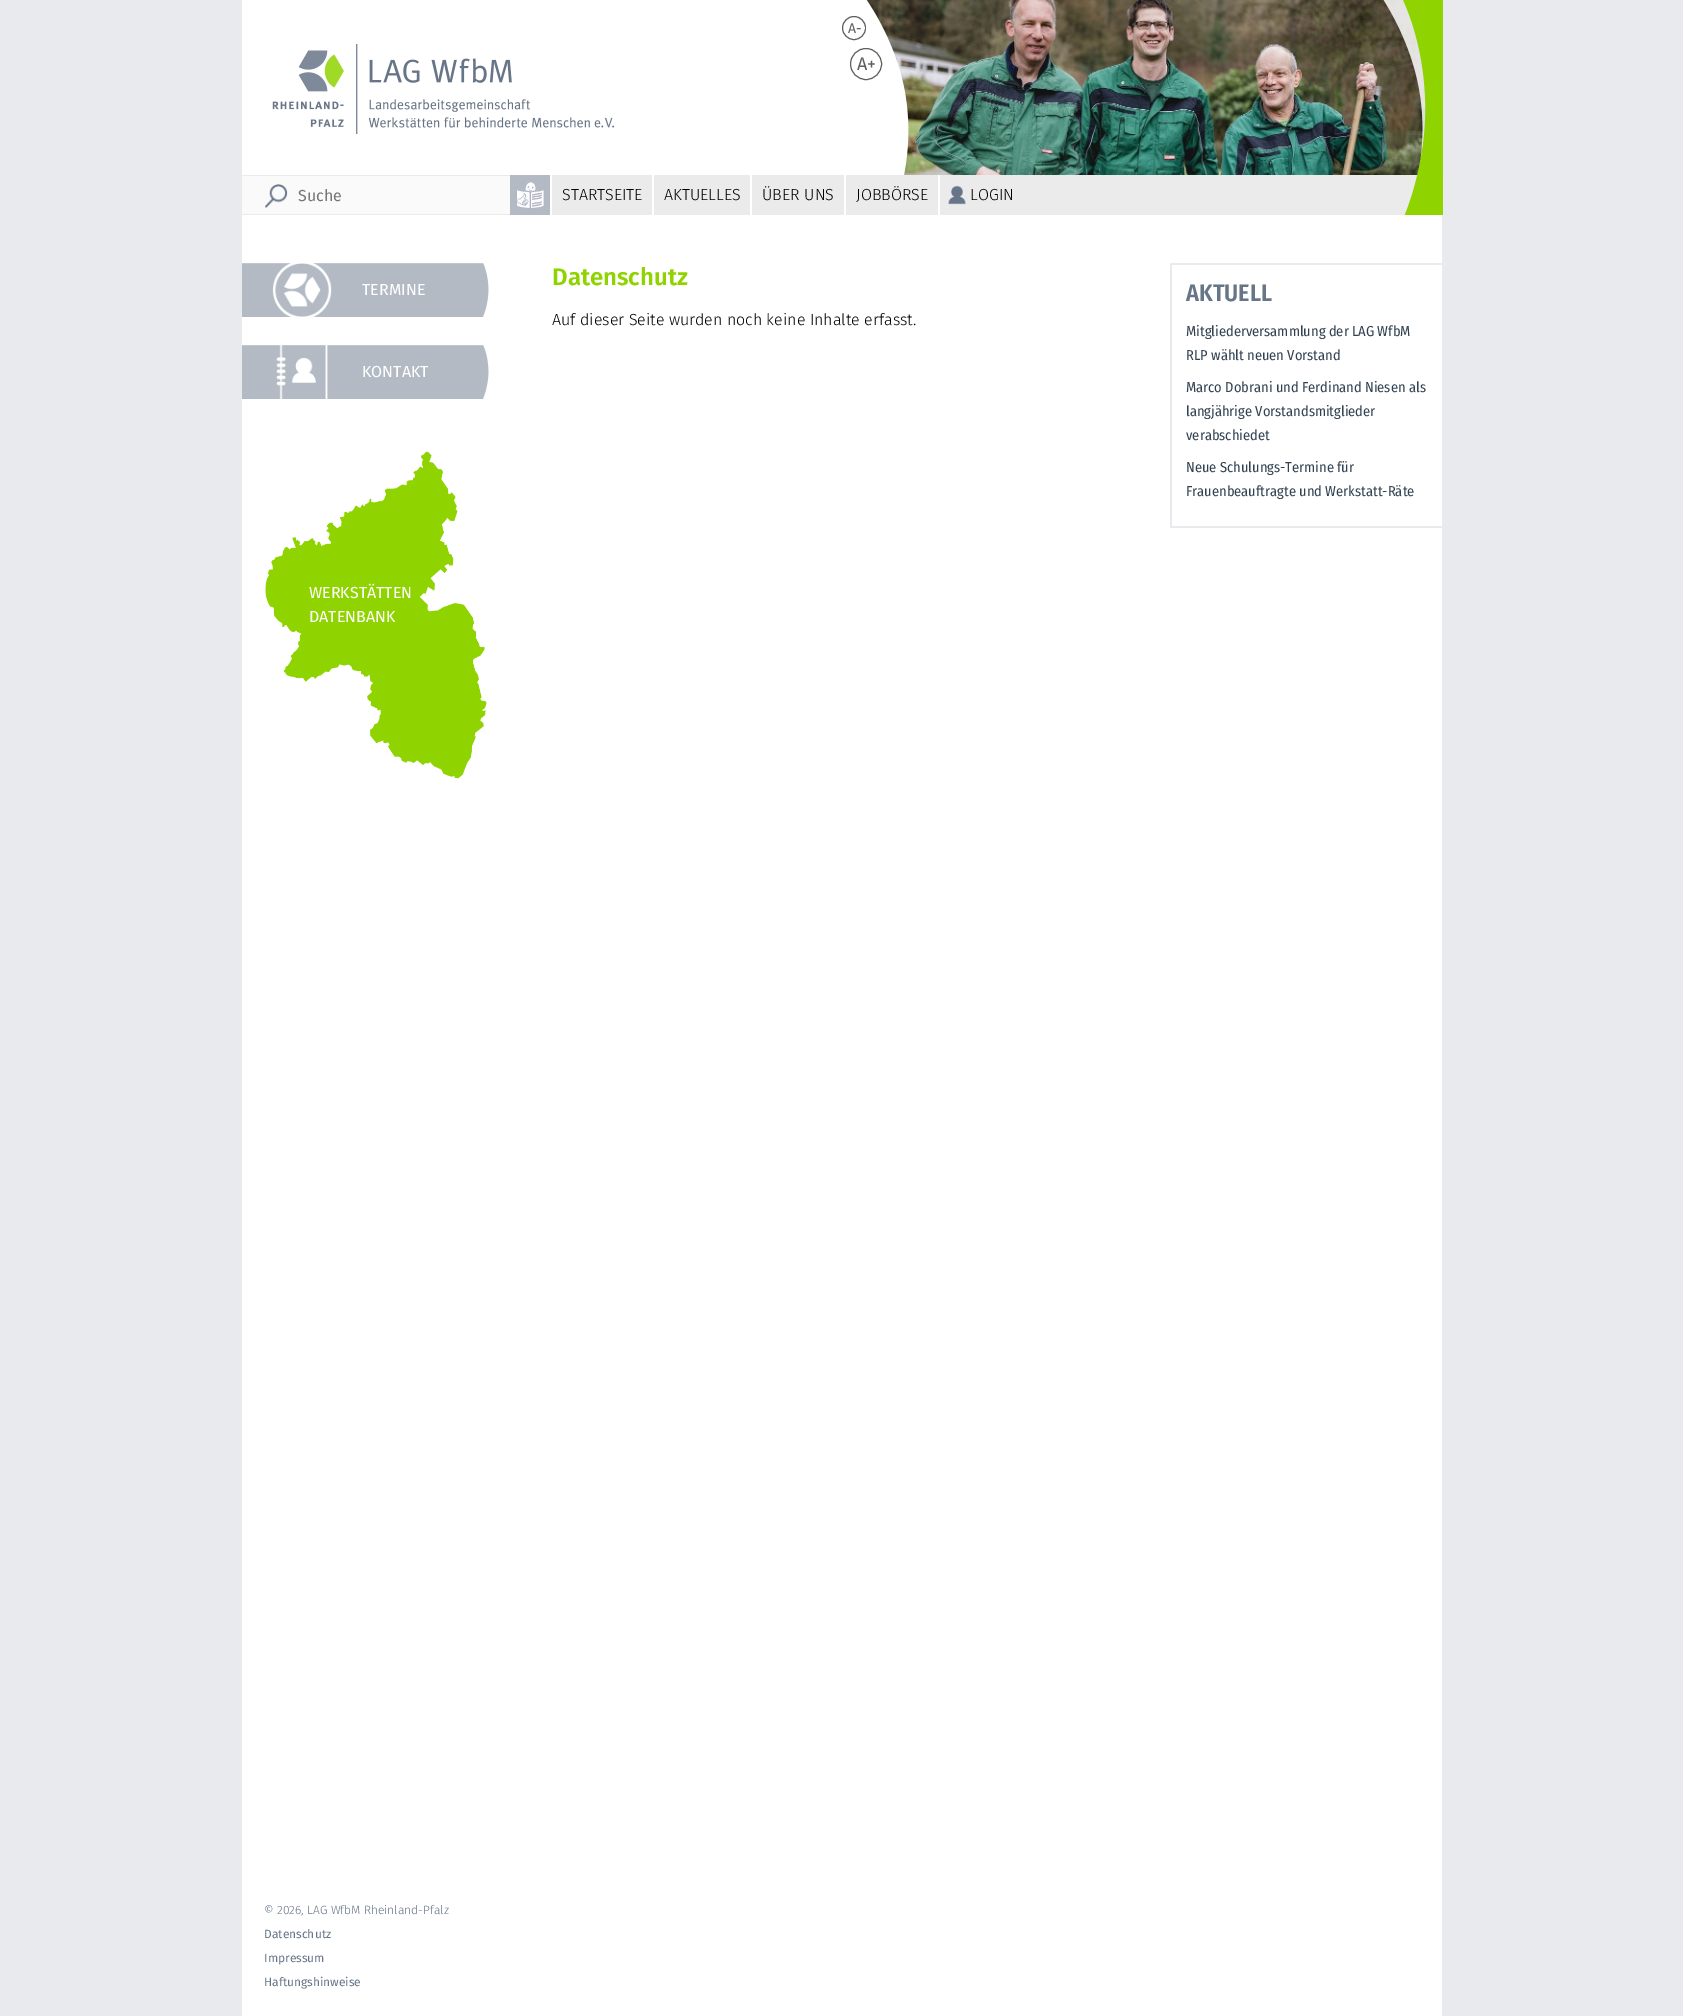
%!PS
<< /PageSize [1683 2016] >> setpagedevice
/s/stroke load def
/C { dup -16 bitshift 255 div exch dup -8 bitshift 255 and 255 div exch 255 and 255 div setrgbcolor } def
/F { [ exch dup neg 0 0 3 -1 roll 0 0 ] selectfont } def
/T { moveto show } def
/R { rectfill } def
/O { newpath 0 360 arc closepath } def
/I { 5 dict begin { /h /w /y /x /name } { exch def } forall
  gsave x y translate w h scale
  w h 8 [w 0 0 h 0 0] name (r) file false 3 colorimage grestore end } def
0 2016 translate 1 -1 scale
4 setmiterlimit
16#E9EAEE C
0 0 1683 2016 R
16#FFFFFF C
242 0 1200 2016 R
(1.rgb) 272 44 342 90 I
16#5F5F5F C
854 28 11.5 O s
/FiraSans-Regular 14 F
(A-) 848 33 T
(2.rgb) 866 0 560 175 I
(3.rgb) 866 0 43 175 I
866 64 15.5 O s
/FiraSans-Regular 18 F
(A+) 857 70 T
16#EBEBEB C
552 175 892 40 R
(4.rgb) 1383 0 60 215 I
16#FAFAFA C
242 176 268 38 R
(5.rgb) 265 184 23 24 I
16#EBEBEB C
242 175 268 1 R
242 214 268 1 R
/FiraSans-Regular 16 F
16#757575 C
(Suche) 298 201 T
(6.rgb) 510 175 40 40 I
/FiraSans-Light 16 F
16#000000 C
(STARTSEITE) 562 200 T
16#FFFFFF C
652 175 2 40 R
16#000000 C
(AKTUELLES) 664 200 T
16#FFFFFF C
750 175 2 40 R
16#000000 C
(ÜBER UNS) 762 200 T
16#FFFFFF C
844 175 2 40 R
16#000000 C
(JOBBÖRSE) 856 200 T
16#FFFFFF C
938 175 2 40 R
(7.rgb) 948 185 18 20 I
16#000000 C
(LOGIN) 970 200 T
(8.rgb) 242 263 247 54 I
(9.rgb) 272 263 60 54 I
/FiraSans-Regular 16 F
16#FFFFFF C
(TERMINE) 362 295 T
(8.rgb) 242 345 247 54 I
(10.rgb) 276 345 52 54 I
(KONTAKT) 362 377 T
(11.rgb) 265 451 222 328 I
(WERKSTÄTTEN) 309 598 T
(DATENBANK) 309 622 T
/FiraSans-SemiBold 24 F
16#8FD300 C
(Datenschutz) 552 285 T
/FiraSans-Light 16 F
16#000000 C
(Auf dieser Seite wurden noch keine Inhalte erfasst.) 552 325 T
16#E9EAEE C
1170 263 274 2 R
1170 526 274 2 R
1170 263 2 265 R
/FiraSansCondensed-SemiBold 24 F
16#667588 C
(AKTUELL) 1186 301 T
/FiraSansCondensed-Regular 14.4 F
16#314150 C
(Mitgliederversammlung der LAG WfbM) 1186 336 T
(RLP wählt neuen Vorstand) 1186 360 T
(Marco Dobrani und Ferdinand Niesen als) 1186 392 T
(langjährige Vorstandsmitglieder) 1186 416 T
(verabschiedet) 1186 440 T
(Neue Schulungs-Termine für) 1186 472 T
(Frauenbeauftragte und Werkstatt-Räte) 1186 496 T
/FiraSans-Light 12 F
16#667588 C
(© 2026, LAG WfbM Rheinland-Pfalz) 264 1914 T
/FiraSans-Regular 12 F
(Datenschutz) 264 1938 T
(Impressum) 264 1962 T
(Haftungshinweise) 264 1986 T
showpage
